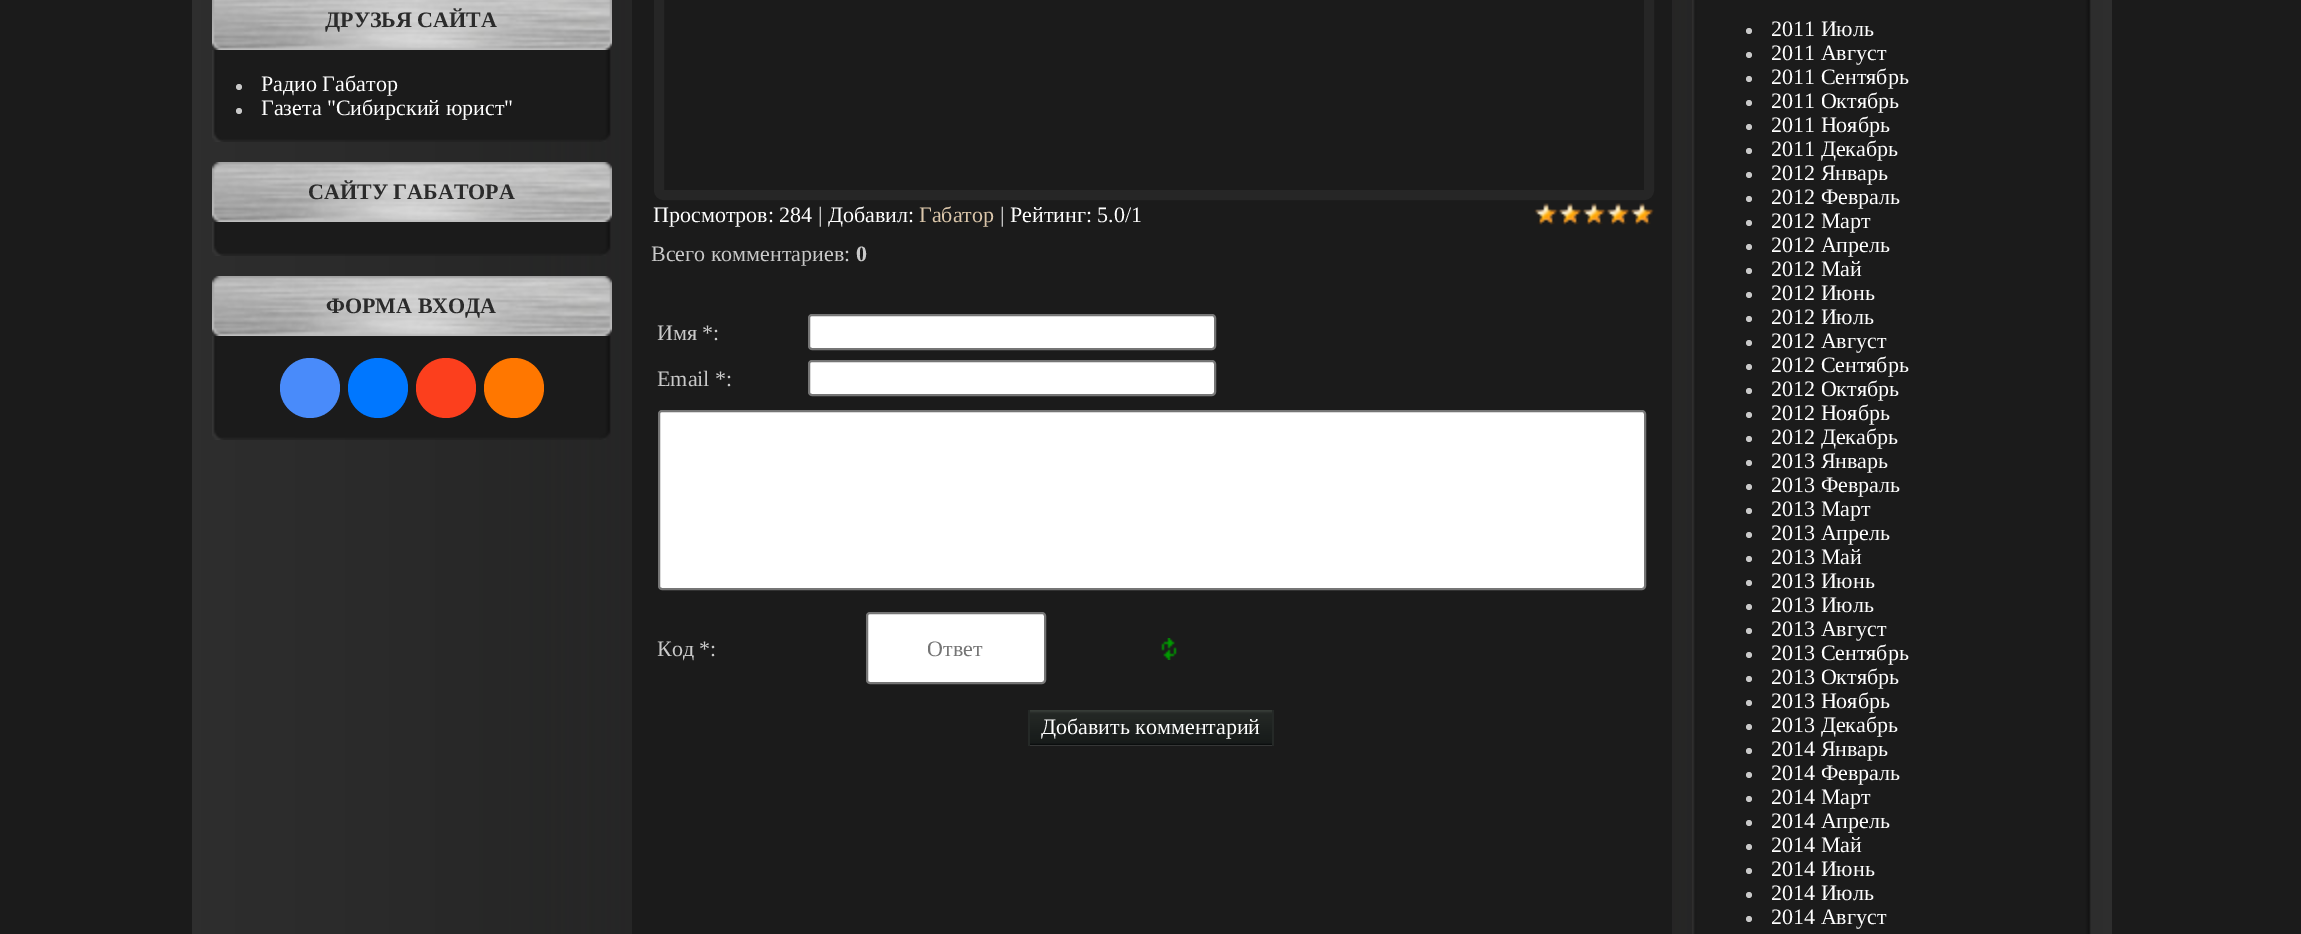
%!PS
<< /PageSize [2301 934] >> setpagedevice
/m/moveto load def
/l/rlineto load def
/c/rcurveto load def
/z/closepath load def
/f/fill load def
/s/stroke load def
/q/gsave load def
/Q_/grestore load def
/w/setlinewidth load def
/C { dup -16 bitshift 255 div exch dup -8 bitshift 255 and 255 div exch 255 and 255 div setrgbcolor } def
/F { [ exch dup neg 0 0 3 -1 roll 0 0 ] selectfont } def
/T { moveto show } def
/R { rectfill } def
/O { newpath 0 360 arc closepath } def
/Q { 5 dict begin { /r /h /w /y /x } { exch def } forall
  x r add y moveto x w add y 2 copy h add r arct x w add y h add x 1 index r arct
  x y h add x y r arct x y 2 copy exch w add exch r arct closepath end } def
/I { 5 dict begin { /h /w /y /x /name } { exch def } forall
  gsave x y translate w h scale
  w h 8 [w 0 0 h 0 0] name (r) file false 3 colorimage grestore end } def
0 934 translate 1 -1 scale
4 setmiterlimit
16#1B1B1B C
0 0 2301 934 R
(1.rgb) 192 0 1920 934 I
(2.rgb) 212 0 400 50 I
/LiberationSerif-Bold 22 F
16#2B2B2B C
(ДРУЗЬЯ САЙТА) 325 27 T
(3.rgb) 212 50 399 82 I
16#C9C9C9 C
239 87 3 O f
/LiberationSerif-Regular 22 F
16#FFFFFF C
(Радио Габатор) 261 91 T
16#C9C9C9 C
239 111 3 O f
16#FFFFFF C
(Газета "Сибирский юрист") 261 115 T
(4.rgb) 212 132 399 10 I
(5.rgb) 212 162 400 60 I
/LiberationSerif-Bold 22 F
16#2B2B2B C
(САЙТУ ГАБАТОРА) 308 199 T
(6.rgb) 212 222 399 24 I
(4.rgb) 212 246 399 10 I
(5.rgb) 212 276 400 60 I
(ФОРМА ВХОДА) 326 313 T
(7.rgb) 212 336 399 94 I
16#498BFA C
310 388 30 O f
16#0077FF C
378 388 30 O f
16#FC3F1D C
446 388 30 O f
16#FF7700 C
514 388 30 O f
(4.rgb) 212 430 399 10 I
16#1B1B1B C
632 0 1040 934 R
16#262626 C
10 w
659 -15 m 990 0 l 0 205 l 0 3 -2 5 -5 5 c -980 0 l -3 0 -5 -2 -5 -5 c z s
/LiberationSerif-Regular 22 F
16#FFFFFF C
(Просмотров: 284 | Добавил:) 653 222 T
16#DCC7AB C
(Габатор) 919 222 T
16#FFFFFF C
(| Рейтинг: 5.0/1) 1000 222 T
(8.rgb) 1535 203 118 21 I
(9.rgb) 1534 203 120 22 I
16#C9C9C9 C
(Всего комментариев:) 651 261 T
/LiberationSerif-Bold 22 F
(0) 856 261 T
/LiberationSerif-Regular 22 F
(Имя *:) 657 340 T
16#FFFFFF C
809 315 406 34 3 Q q f Q_
16#767676 C
2 w
s
16#C9C9C9 C
(Email *:) 657 386 T
16#FFFFFF C
809 361 406 34 3 Q q f Q_
16#767676 C
s
16#FFFFFF C
659 411 986 178 3 Q q f Q_
16#767676 C
s
16#C9C9C9 C
(Код *:) 657 656 T
16#FFFFFF C
867 613 178 70 3 Q q f Q_
16#767676 C
s
16#757575 C
(Ответ) 927 656 T
(10.rgb) 1161 638 16 22 I
(11.rgb) 1030 710 242 36 I
16#252927 C
1272 710 2 36 R
1028 710 2 36 R
16#FFFFFF C
(Добавить комментарий) 1041 734 T
(12.rgb) 1692 0 399 934 I
16#C9C9C9 C
1749 31 3 O f
16#FFFFFF C
(2011 Июль) 1771 36 T
16#C9C9C9 C
1749 55 3 O f
16#FFFFFF C
(2011 Август) 1771 60 T
16#C9C9C9 C
1749 79 3 O f
16#FFFFFF C
(2011 Сентябрь) 1771 84 T
16#C9C9C9 C
1749 103 3 O f
16#FFFFFF C
(2011 Октябрь) 1771 108 T
16#C9C9C9 C
1749 127 3 O f
16#FFFFFF C
(2011 Ноябрь) 1771 132 T
16#C9C9C9 C
1749 151 3 O f
16#FFFFFF C
(2011 Декабрь) 1771 156 T
16#C9C9C9 C
1749 175 3 O f
16#FFFFFF C
(2012 Январь) 1771 180 T
16#C9C9C9 C
1749 199 3 O f
16#FFFFFF C
(2012 Февраль) 1771 204 T
16#C9C9C9 C
1749 223 3 O f
16#FFFFFF C
(2012 Март) 1771 228 T
16#C9C9C9 C
1749 247 3 O f
16#FFFFFF C
(2012 Апрель) 1771 252 T
16#C9C9C9 C
1749 271 3 O f
16#FFFFFF C
(2012 Май) 1771 276 T
16#C9C9C9 C
1749 295 3 O f
16#FFFFFF C
(2012 Июнь) 1771 300 T
16#C9C9C9 C
1749 319 3 O f
16#FFFFFF C
(2012 Июль) 1771 324 T
16#C9C9C9 C
1749 343 3 O f
16#FFFFFF C
(2012 Август) 1771 348 T
16#C9C9C9 C
1749 367 3 O f
16#FFFFFF C
(2012 Сентябрь) 1771 372 T
16#C9C9C9 C
1749 391 3 O f
16#FFFFFF C
(2012 Октябрь) 1771 396 T
16#C9C9C9 C
1749 415 3 O f
16#FFFFFF C
(2012 Ноябрь) 1771 420 T
16#C9C9C9 C
1749 439 3 O f
16#FFFFFF C
(2012 Декабрь) 1771 444 T
16#C9C9C9 C
1749 463 3 O f
16#FFFFFF C
(2013 Январь) 1771 468 T
16#C9C9C9 C
1749 487 3 O f
16#FFFFFF C
(2013 Февраль) 1771 492 T
16#C9C9C9 C
1749 511 3 O f
16#FFFFFF C
(2013 Март) 1771 516 T
16#C9C9C9 C
1749 535 3 O f
16#FFFFFF C
(2013 Апрель) 1771 540 T
16#C9C9C9 C
1749 559 3 O f
16#FFFFFF C
(2013 Май) 1771 564 T
16#C9C9C9 C
1749 583 3 O f
16#FFFFFF C
(2013 Июнь) 1771 588 T
16#C9C9C9 C
1749 607 3 O f
16#FFFFFF C
(2013 Июль) 1771 612 T
16#C9C9C9 C
1749 631 3 O f
16#FFFFFF C
(2013 Август) 1771 636 T
16#C9C9C9 C
1749 655 3 O f
16#FFFFFF C
(2013 Сентябрь) 1771 660 T
16#C9C9C9 C
1749 679 3 O f
16#FFFFFF C
(2013 Октябрь) 1771 684 T
16#C9C9C9 C
1749 703 3 O f
16#FFFFFF C
(2013 Ноябрь) 1771 708 T
16#C9C9C9 C
1749 727 3 O f
16#FFFFFF C
(2013 Декабрь) 1771 732 T
16#C9C9C9 C
1749 751 3 O f
16#FFFFFF C
(2014 Январь) 1771 756 T
16#C9C9C9 C
1749 775 3 O f
16#FFFFFF C
(2014 Февраль) 1771 780 T
16#C9C9C9 C
1749 799 3 O f
16#FFFFFF C
(2014 Март) 1771 804 T
16#C9C9C9 C
1749 823 3 O f
16#FFFFFF C
(2014 Апрель) 1771 828 T
16#C9C9C9 C
1749 847 3 O f
16#FFFFFF C
(2014 Май) 1771 852 T
16#C9C9C9 C
1749 871 3 O f
16#FFFFFF C
(2014 Июнь) 1771 876 T
16#C9C9C9 C
1749 895 3 O f
16#FFFFFF C
(2014 Июль) 1771 900 T
16#C9C9C9 C
1749 919 3 O f
16#FFFFFF C
(2014 Август) 1771 924 T
showpage
